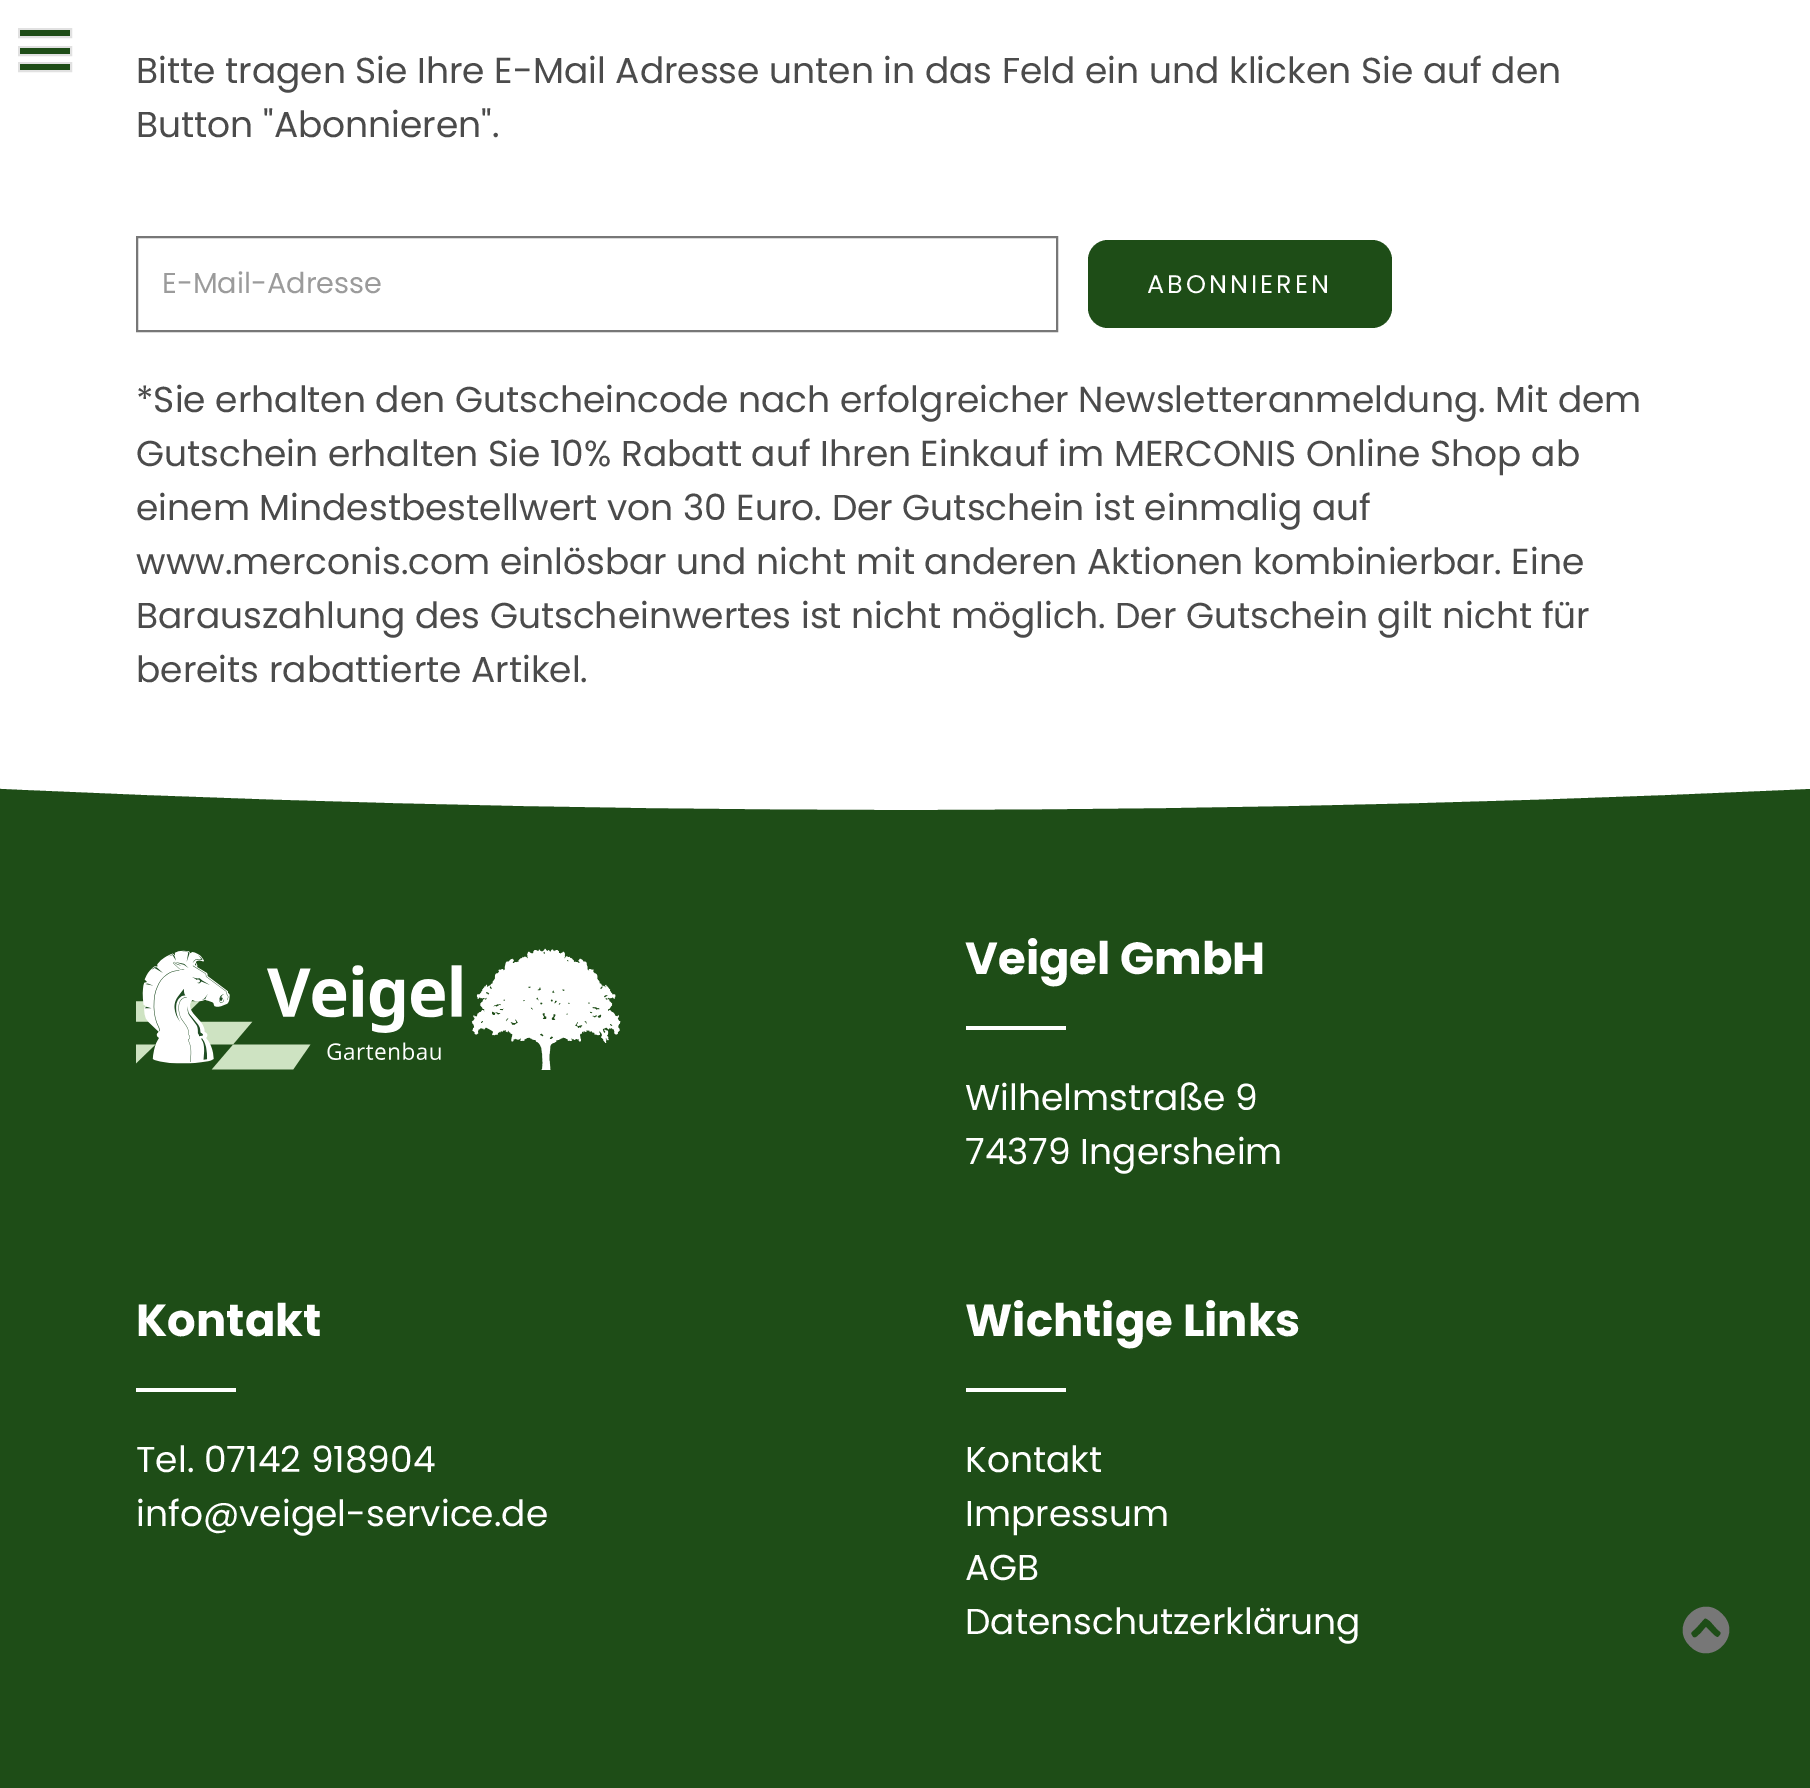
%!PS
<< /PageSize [1810 1788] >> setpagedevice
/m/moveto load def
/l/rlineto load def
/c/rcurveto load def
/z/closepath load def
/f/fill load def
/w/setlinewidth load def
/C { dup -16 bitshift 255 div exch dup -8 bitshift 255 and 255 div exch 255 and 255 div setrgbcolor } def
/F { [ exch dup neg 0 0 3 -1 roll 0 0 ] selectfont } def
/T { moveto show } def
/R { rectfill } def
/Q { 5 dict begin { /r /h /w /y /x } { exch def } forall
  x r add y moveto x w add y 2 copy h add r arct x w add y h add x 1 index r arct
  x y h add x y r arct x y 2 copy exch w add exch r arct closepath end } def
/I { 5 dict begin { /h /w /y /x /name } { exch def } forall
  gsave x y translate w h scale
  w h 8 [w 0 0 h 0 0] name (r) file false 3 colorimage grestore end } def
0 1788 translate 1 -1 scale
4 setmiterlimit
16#FFFFFF C
0 0 1810 1788 R
16#E1E1E1 C
2 w
19 63 52 8 rectstroke
16#1E4D17 C
20 64 50 6 R
16#E1E1E1 C
19 29 52 8 rectstroke
16#1E4D17 C
20 30 50 6 R
16#E1E1E1 C
19 47 52 8 rectstroke
16#1E4D17 C
20 48 50 6 R
/Poppins-Regular 36 F
16#4B4B4B C
(Bitte tragen Sie Ihre E-Mail Adresse unten in das Feld ein und klicken Sie auf den) 136 83 T
(Button "Abonnieren".) 136 137 T
16#777777 C
137 237 920 94 rectstroke
/Poppins-Regular 28.75 F
16#9B9B9B C
(E-Mail-Adresse) 162 293 T
16#1E4D17 C
1088 240 304 88 20 Q f
/Poppins-Regular 25.5 F
16#FFFFFF C
1147 293 m 3 0 (ABONNIEREN) ashow
/Poppins-Regular 36 F
16#4B4B4B C
(*Sie erhalten den Gutscheincode nach erfolgreicher Newsletteranmeldung. Mit dem) 136 412 T
(Gutschein erhalten Sie 10% Rabatt auf Ihren Einkauf im MERCONIS Online Shop ab) 136 466 T
(einem Mindestbestellwert von 30 Euro. Der Gutschein ist einmalig auf) 136 520 T
(www.merconis.com einlösbar und nicht mit anderen Aktionen kombinierbar. Eine) 136 574 T
(Barauszahlung des Gutscheinwertes ist nicht möglich. Der Gutschein gilt nicht für) 136 628 T
(bereits rabattierte Artikel.) 136 682 T
16#1E4D17 C
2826 812 m -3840 0 l 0 -100 l 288 32 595 56 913 72 c 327 17 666 26 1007 26 c 341 0 680 -9 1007 -26 c 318 -16 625 -40 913 -72 c z f
0 812 1810 976 R
(1.rgb) 136 948 485 122 I
/Poppins-Bold 45 F
16#FFFFFF C
(Veigel GmbH) 965 974 T
966 1026 100 4 R
/Poppins-Regular 36 F
(Wilhelmstraße 9) 965 1110 T
(74379 Ingersheim) 965 1164 T
/Poppins-Bold 45 F
(Kontakt) 136 1336 T
136 1388 100 4 R
/Poppins-Regular 36 F
(Tel. 07142 918904) 136 1472 T
(info@veigel-service.de) 136 1526 T
/Poppins-Bold 45 F
(Wichtige Links) 965 1336 T
966 1388 100 4 R
/Poppins-Regular 36 F
(Kontakt) 965 1472 T
(Impressum) 965 1526 T
(AGB) 965 1580 T
(Datenschutzerklärung) 965 1634 T
16#777777 C
1690 1646 m -22 -21 11 -54 32 -32 c 22 21 -11 54 -32 32 c z 1704 1619 m -8 9 l -4 4 -7 4 -3 9 c 3 2 5 -2 7 -3 c 6 -7 l 2 2 9 10 11 10 c 1 1 2 -1 3 -2 c 2 -2 0 -4 -2 -5 c -8 -9 l -2 -1 -4 -4 -6 -2 c z f
showpage
